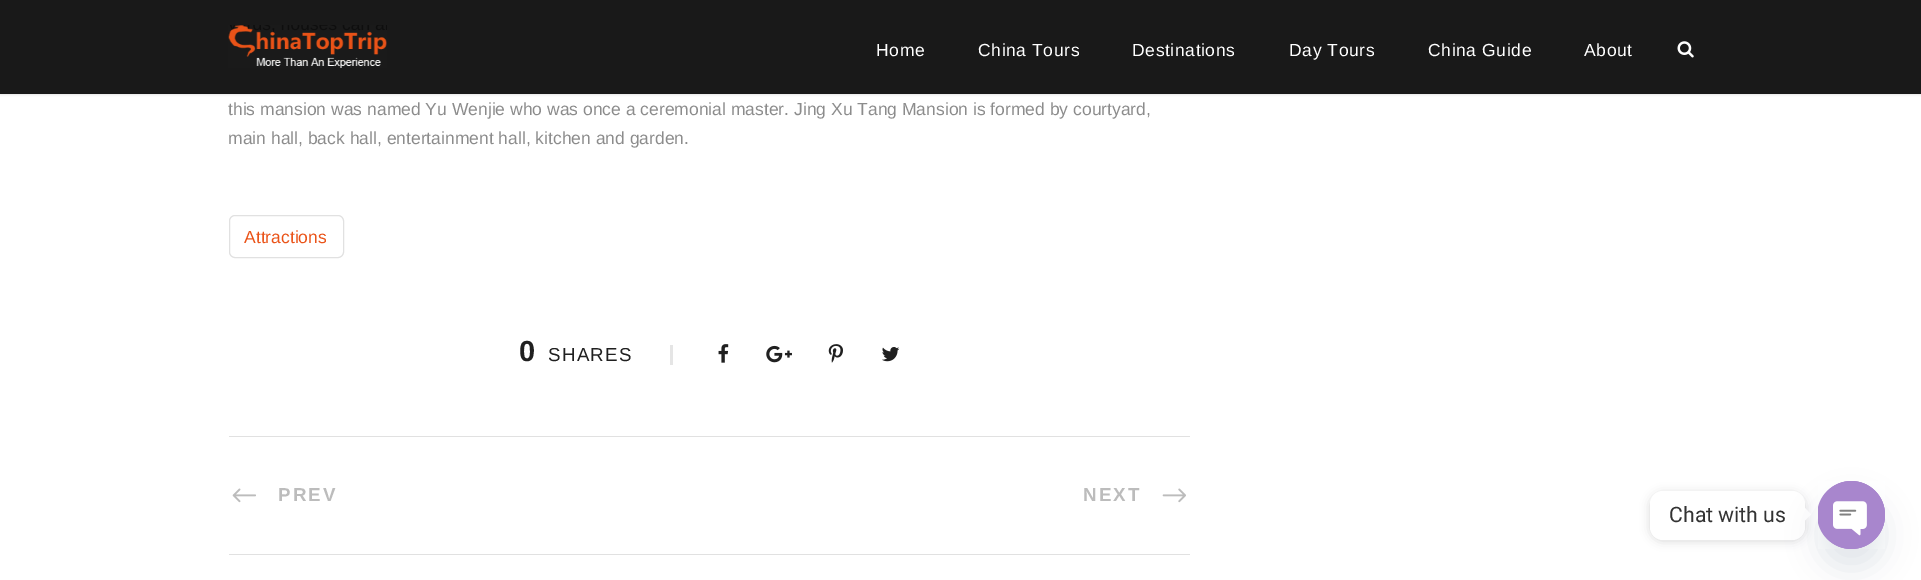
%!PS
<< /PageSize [1921 580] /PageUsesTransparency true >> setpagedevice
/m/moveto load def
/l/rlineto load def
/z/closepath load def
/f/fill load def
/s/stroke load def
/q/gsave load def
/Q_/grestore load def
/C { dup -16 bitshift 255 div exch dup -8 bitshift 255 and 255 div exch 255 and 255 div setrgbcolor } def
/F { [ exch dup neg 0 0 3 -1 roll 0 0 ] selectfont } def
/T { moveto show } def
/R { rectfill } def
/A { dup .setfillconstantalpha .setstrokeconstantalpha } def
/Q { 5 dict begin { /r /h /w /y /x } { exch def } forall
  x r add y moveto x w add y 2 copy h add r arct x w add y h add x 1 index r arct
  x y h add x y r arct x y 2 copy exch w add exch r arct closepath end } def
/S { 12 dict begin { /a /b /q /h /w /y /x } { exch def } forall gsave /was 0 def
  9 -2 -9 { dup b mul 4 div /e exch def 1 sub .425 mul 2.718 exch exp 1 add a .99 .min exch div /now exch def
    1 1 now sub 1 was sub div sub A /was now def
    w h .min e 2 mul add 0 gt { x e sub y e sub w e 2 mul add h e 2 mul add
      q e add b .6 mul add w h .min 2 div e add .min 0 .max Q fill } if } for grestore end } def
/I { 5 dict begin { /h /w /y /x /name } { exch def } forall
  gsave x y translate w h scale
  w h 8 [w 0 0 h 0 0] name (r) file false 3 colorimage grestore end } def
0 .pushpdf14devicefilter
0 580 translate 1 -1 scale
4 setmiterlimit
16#FFFFFF C
0 0 1921 580 R
q
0 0 m 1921 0 l 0 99 l -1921 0 l z 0 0 m 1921 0 l 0 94 l -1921 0 l z eoclip newpath
16#000000 C
0 1 1921 94 0 1 .1 S
Q_
0.9 A
16#000000 C
0 0 1921 94 R
1 A
(1.rgb) 228 25 159 43 I
/LiberationSans-Regular 17.5 F
16#FFFFFF C
876 56 m .6 0 (Home) ashow
978 56 m .6 0 (China Tours) ashow
1132 56 m .6 0 (Destinations) ashow
1289 56 m .6 0 (Day Tours) ashow
1428 56 m .6 0 (China Guide) ashow
1584 56 m .6 0 (About) ashow
(2.rgb) 1677 41 17 17 I
16#8C8C8C C
(this mansion was named Yu Wenjie who was once a ceremonial master. Jing Xu Tang Mansion is formed by courtyard,) 228 115 T
(main hall, back hall, entertainment hall, kitchen and garden.) 228 144 T
16#E1E1E1 C
229.5 215.5 114 42 5.5 Q s
16#EA5318 C
(Attractions) 244 243 T
/LiberationSans-Bold 29 F
16#202020 C
(0) 519 361 T
/LiberationSans-Regular 18.75 F
548 361 m 1.25 0 (SHARES) ashow
16#E5E5E5 C
670 345 3 20 R
(3.rgb) 718 344 11 19 I
(4.rgb) 766 345 26 18 I
(5.rgb) 828 344 15 19 I
(6.rgb) 882 347 18 15 I
16#E1E1E1 C
229 436 961 1 R
229 554 961 1 R
(7.rgb) 232 488 24 15 I
/LiberationSans-Bold 18.75 F
16#BCBCBC C
278 501 m 2 0 (PREV) ashow
1083 501 m 2 0 (NEXT) ashow
(8.rgb) 1162 488 24 15 I
16#000000 C
1650 493 155 48 13 5 .15 S
16#FFFFFF C
1650 491 155 49 13 Q f
/Roboto-Regular 21.25 F
16#333333 C
(Chat with us) 1669 522 T
16#FFFFFF C
1805 520.5 m 0 -12.5 l 6 6.5 l z f
16#49687E C
1818 501 67 68 33.5 15 .16 S
16#A886CD C
1818 481 67 68 33.5 Q f
(9.rgb) 1818 481 67 68 I
.poppdf14devicefilter showpage
